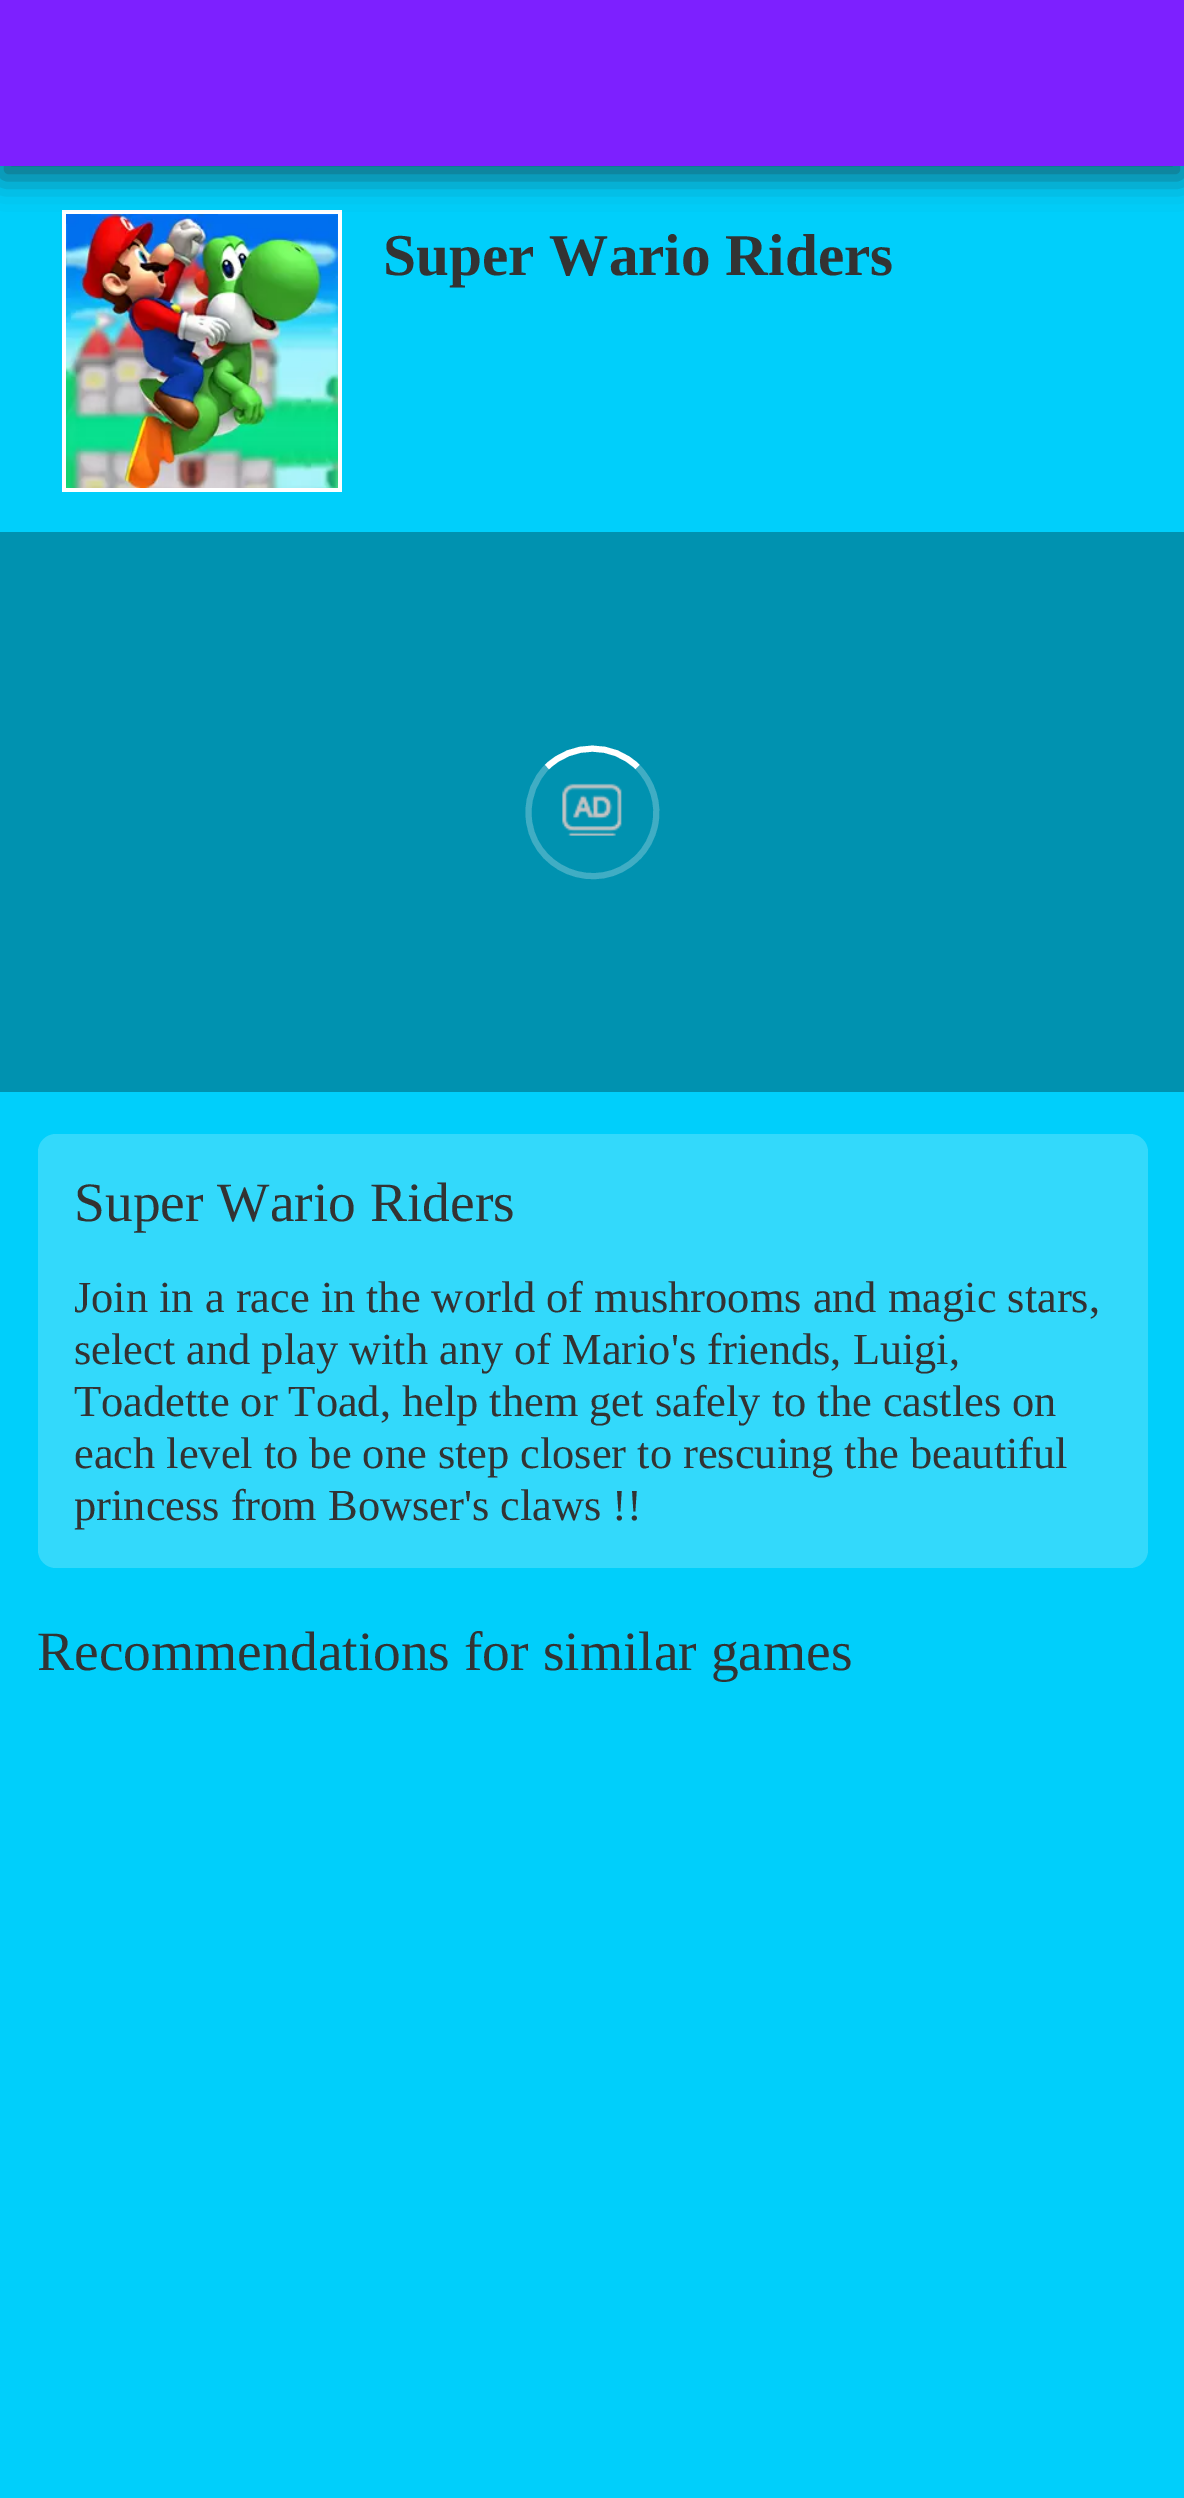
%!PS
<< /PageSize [1184 2498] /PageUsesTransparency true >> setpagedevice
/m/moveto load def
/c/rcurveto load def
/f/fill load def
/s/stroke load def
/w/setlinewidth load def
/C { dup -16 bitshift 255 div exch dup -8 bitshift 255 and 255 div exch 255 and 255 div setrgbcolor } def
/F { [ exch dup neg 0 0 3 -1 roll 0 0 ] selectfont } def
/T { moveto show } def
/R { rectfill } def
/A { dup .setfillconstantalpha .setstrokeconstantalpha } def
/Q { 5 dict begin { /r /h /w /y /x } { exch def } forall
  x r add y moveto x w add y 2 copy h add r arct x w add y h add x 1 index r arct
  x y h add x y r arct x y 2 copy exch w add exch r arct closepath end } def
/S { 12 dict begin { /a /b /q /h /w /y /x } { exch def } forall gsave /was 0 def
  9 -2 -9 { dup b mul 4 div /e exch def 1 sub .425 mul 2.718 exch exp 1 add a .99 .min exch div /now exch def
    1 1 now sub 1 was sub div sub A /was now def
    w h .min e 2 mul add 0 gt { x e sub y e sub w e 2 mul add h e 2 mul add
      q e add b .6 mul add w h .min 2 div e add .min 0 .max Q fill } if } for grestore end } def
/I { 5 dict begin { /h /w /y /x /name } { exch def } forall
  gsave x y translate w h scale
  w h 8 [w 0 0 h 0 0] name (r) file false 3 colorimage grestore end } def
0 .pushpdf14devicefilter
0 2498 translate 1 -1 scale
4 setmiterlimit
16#00CFFB C
0 0 1184 2498 R
16#FFFFFF C
62 210 280 282 R
(1.rgb) 66 214 272 274 I
16#1F1F1F C
0 12 1184 166 0 15 .6 S
16#7D20FF C
0 0 1184 166 R
/LiberationSerif-Bold 59.25 F
16#333333 C
(Super Wario Riders) 383 275 T
16#0092B0 C
0 532 1184 560 R
16#FFFFFF C
6 w
547 767 m 25 -24.5 66 -24.5 90.5 0 c s
0.25 A
637.5 767 m 15 15 22 37 17.5 58 c -2.5 12.5 -8.5 24 -17.5 32.5 c -40 40 -109 11.5 -109 -45 c 0 -17 6.5 -33.5 18.5 -45.5 c s
1 A
(2.rgb) 562 783 60 53 I
16#33D9FB C
38 1134 1110 434 18 Q f
/LiberationSerif-Regular 55.5 F
16#333333 C
(Super Wario Riders) 74 1221 T
/LiberationSerif-Regular 44.4 F
(Join in a race in the world of mushrooms and magic stars,) 74 1312 T
(select and play with any of Mario's friends, Luigi,) 74 1364 T
(Toadette or Toad, help them get safely to the castles on) 74 1416 T
(each level to be one step closer to rescuing the beautiful) 74 1468 T
(princess from Bowser's claws !!) 74 1520 T
/LiberationSerif-Regular 55.5 F
(Recommendations for similar games) 37 1670 T
.poppdf14devicefilter showpage
